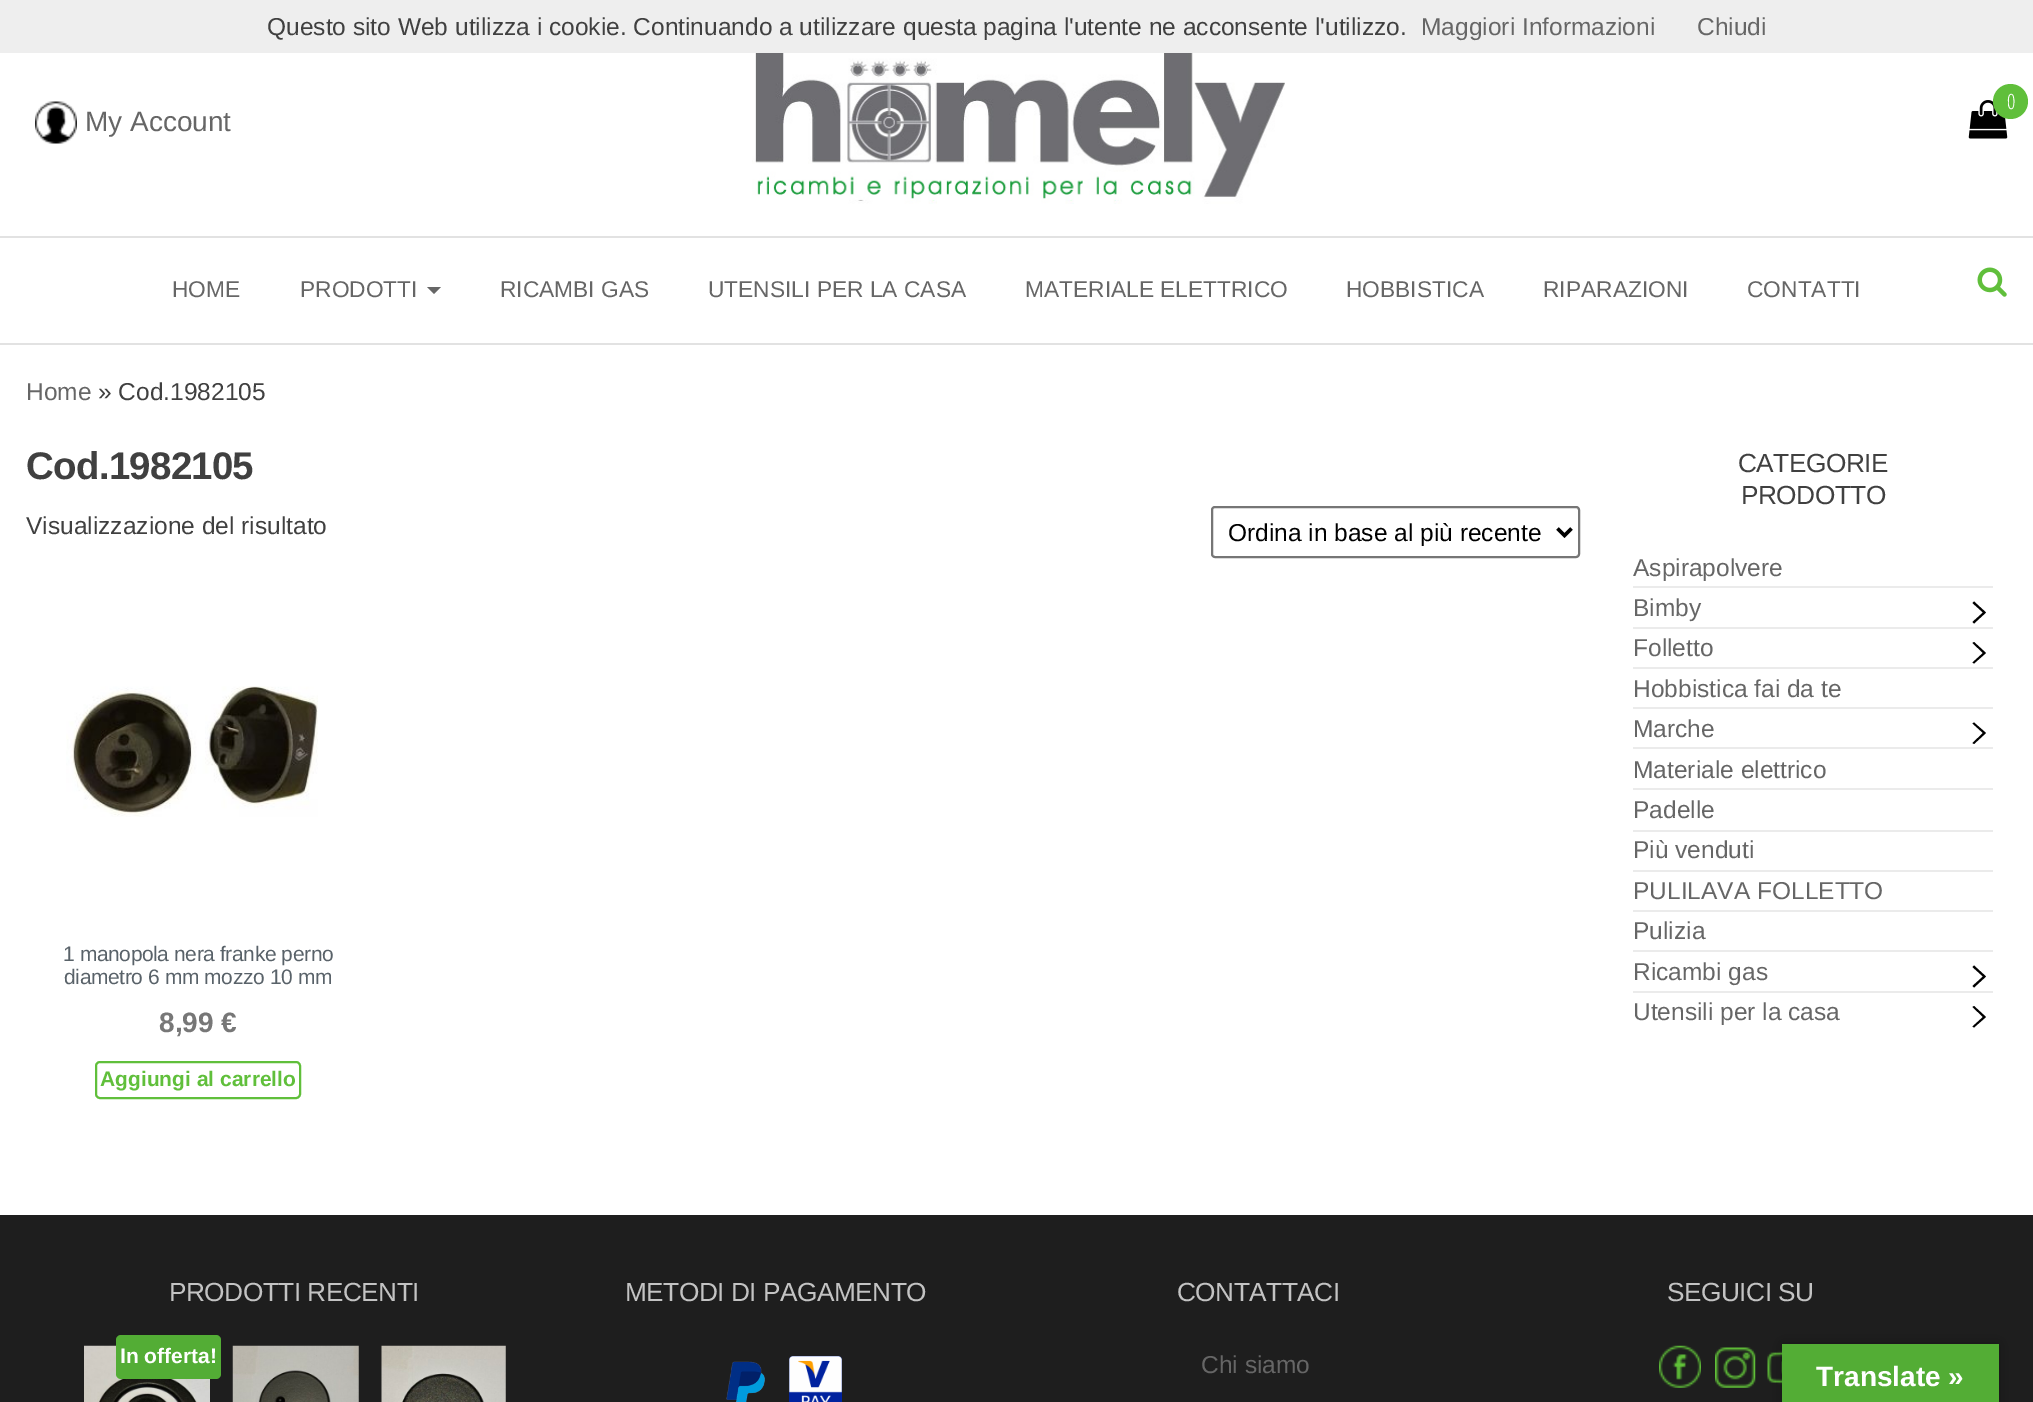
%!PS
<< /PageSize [2033 1402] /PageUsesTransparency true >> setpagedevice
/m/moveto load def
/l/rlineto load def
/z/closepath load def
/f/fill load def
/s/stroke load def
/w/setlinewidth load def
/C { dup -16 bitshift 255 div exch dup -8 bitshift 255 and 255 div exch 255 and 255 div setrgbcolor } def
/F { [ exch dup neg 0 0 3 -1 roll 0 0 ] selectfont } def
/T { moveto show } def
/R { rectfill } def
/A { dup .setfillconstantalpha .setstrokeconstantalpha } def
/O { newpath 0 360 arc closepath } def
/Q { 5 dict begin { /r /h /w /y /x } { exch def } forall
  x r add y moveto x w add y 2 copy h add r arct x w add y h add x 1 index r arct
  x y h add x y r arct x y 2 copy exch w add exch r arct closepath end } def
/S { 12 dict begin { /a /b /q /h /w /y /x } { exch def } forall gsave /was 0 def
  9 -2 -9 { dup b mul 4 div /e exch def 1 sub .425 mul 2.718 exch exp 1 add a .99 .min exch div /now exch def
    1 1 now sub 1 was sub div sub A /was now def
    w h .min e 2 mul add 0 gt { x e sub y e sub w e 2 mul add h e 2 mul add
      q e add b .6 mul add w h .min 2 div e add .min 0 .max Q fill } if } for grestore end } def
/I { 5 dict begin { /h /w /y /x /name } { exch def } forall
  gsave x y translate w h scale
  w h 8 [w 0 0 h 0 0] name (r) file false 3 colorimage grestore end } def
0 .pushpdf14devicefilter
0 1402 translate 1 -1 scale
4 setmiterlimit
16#FFFFFF C
0 0 2033 1402 R
16#EEEEEE C
0 0 2033 53 R
/LiberationSans-Regular 24.5 F
16#404040 C
(Questo sito Web utilizza i cookie. Continuando a utilizzare questa pagina l'utente ne acconsente l'utilizzo.) 267 35 T
16#666666 C
(Maggiori Informazioni) 1421 35 T
(Chiudi) 1697 35 T
(1.rgb) 752 53 533 151 I
(2.rgb) 1968 100 40 39 I
16#60BF3B C
2010.5 101.5 17.5 O f
/OpenSansCondensed-Light 21 F
16#FFFFFF C
(0) 2007 109 T
(3.rgb) 35 101 42 43 I
/LiberationSans-Regular 28 F
16#666666 C
(My Account) 85 131 T
16#E2E2E2 C
0 236 2033 2 R
0 343 2033 2 R
/LiberationSans-Regular 22.75 F
16#666666 C
(HOME) 172 297 T
(PRODOTTI) 300 297 T
427 287 m 14 0 l -7 7 l z f
(RICAMBI GAS) 500 297 T
(UTENSILI PER LA CASA) 708 297 T
(MATERIALE ELETTRICO) 1025 297 T
(HOBBISTICA) 1346 297 T
(RIPARAZIONI) 1543 297 T
(CONTATTI) 1747 297 T
(4.rgb) 1977 267 30 30 I
/LiberationSans-Regular 24.5 F
(Home) 26 400 T
16#404040 C
(» Cod.1982105) 98 400 T
/LiberationSans-Bold 38.5 F
26 479 m -.75 0 (Cod.1982105) ashow
/LiberationSans-Regular 24.5 F
(Visualizzazione del risultato) 26 534 T
16#767676 C
2 w
1212 507 367 50 3 Q s
16#000000 C
3.5 w
1557.5 528.5 m 7 7 l 7 -7 l s
(Ordina in base al più recente) 1228 541 T
(5.rgb) 66 686 252 131 I
/LiberationSans-Regular 21 F
16#596269 C
63 961 m -.4 0 (1 manopola nera franke perno) ashow
64 984 m -.4 0 (diametro 6 mm mozzo 10 mm) ashow
/LiberationSans-Bold 28 F
16#777777 C
(8,99 €) 159 1032 T
16#60BF3B C
2 w
96 1062 204 36 4 Q s
/LiberationSans-Bold 21 F
(Aggiungi al carrello) 100 1086 T
/LiberationSans-Regular 26.25 F
16#404040 C
1738 472 m -.5 0 (CATEGORIE) ashow
1741 504 m -.5 0 (PRODOTTO) ashow
16#EBEBEB C
1633 586 360 2 R
/LiberationSans-Regular 24.5 F
16#666666 C
(Aspirapolvere) 1633 576 T
16#EBEBEB C
1633 627 360 2 R
16#666666 C
(Bimby) 1633 616 T
16#000000 C
1972.5 603 m 1.5 -1.5 l 12 11 l -12 11 l -1.5 -1.5 l 10.5 -9.5 l z f
16#EBEBEB C
1633 667 360 2 R
16#666666 C
(Folletto) 1633 656 T
16#000000 C
1972.5 643 m 1.5 -1 l 12 11 l -12 10.5 l -1.5 -1 l 10.5 -9.5 l z f
16#EBEBEB C
1633 707 360 2 R
16#666666 C
(Hobbistica fai da te) 1633 697 T
16#EBEBEB C
1633 747 360 2 R
16#666666 C
(Marche) 1633 737 T
16#000000 C
1972.5 723.5 m 1.5 -1 l 12 10.5 l -12 11 l -1.5 -1 l 10.5 -10 l z f
16#EBEBEB C
1633 788 360 2 R
16#666666 C
(Materiale elettrico) 1633 778 T
16#EBEBEB C
1633 830 360 2 R
16#666666 C
(Padelle) 1633 818 T
16#EBEBEB C
1633 870 360 2 R
16#666666 C
(Più venduti) 1633 858 T
16#EBEBEB C
1633 910 360 2 R
16#666666 C
(PULILAVA FOLLETTO) 1633 899 T
16#EBEBEB C
1633 950 360 2 R
16#666666 C
(Pulizia) 1633 939 T
16#EBEBEB C
1633 991 360 2 R
16#666666 C
(Ricambi gas) 1633 980 T
16#000000 C
1972.5 967 m 1.5 -1.5 l 12 11 l -12 11 l -1.5 -1.5 l 10.5 -9.5 l z f
16#666666 C
(Utensili per la casa) 1633 1020 T
16#000000 C
1972.5 1007 m 1.5 -1 l 12 11 l -12 10.5 l -1.5 -1 l 10.5 -9.5 l z f
16#1E1E1E C
0 1215 2033 187 R
/LiberationSans-Regular 26.25 F
16#C3C3C3 C
169 1301 m -.5 0 (PRODOTTI RECENTI) ashow
(6.rgb) 84 1345 126 57 I
16#53AD35 C
116 1335 105 44 5 Q f
/LiberationSans-Bold 21 F
16#FFFFFF C
(In offerta!) 120 1363 T
(7.rgb) 232 1345 127 57 I
(8.rgb) 381 1345 125 57 I
/LiberationSans-Regular 26.25 F
16#C3C3C3 C
625 1301 m -.5 0 (METODI DI PAGAMENTO) ashow
(9.rgb) 726 1361 39 41 I
(10.rgb) 789 1355 53 47 I
1177 1301 m -.5 0 (CONTATTACI) ashow
/LiberationSans-Regular 24.5 F
16#666666 C
(Chi siamo) 1201 1373 T
/LiberationSans-Regular 26.25 F
16#C3C3C3 C
1667 1301 m -.5 0 (SEGUICI SU) ashow
(11.rgb) 1659 1345 42 43 I
(12.rgb) 1715 1347 41 41 I
(13.rgb) 1767 1350 15 35 I
16#000000 C
1782 1344 217 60 0 8 .3 S
16#53AD35 C
1782 1344 217 58 R
/LiberationSans-Bold 28 F
16#FFFFFF C
(Translate ») 1816 1386 T
.poppdf14devicefilter showpage
